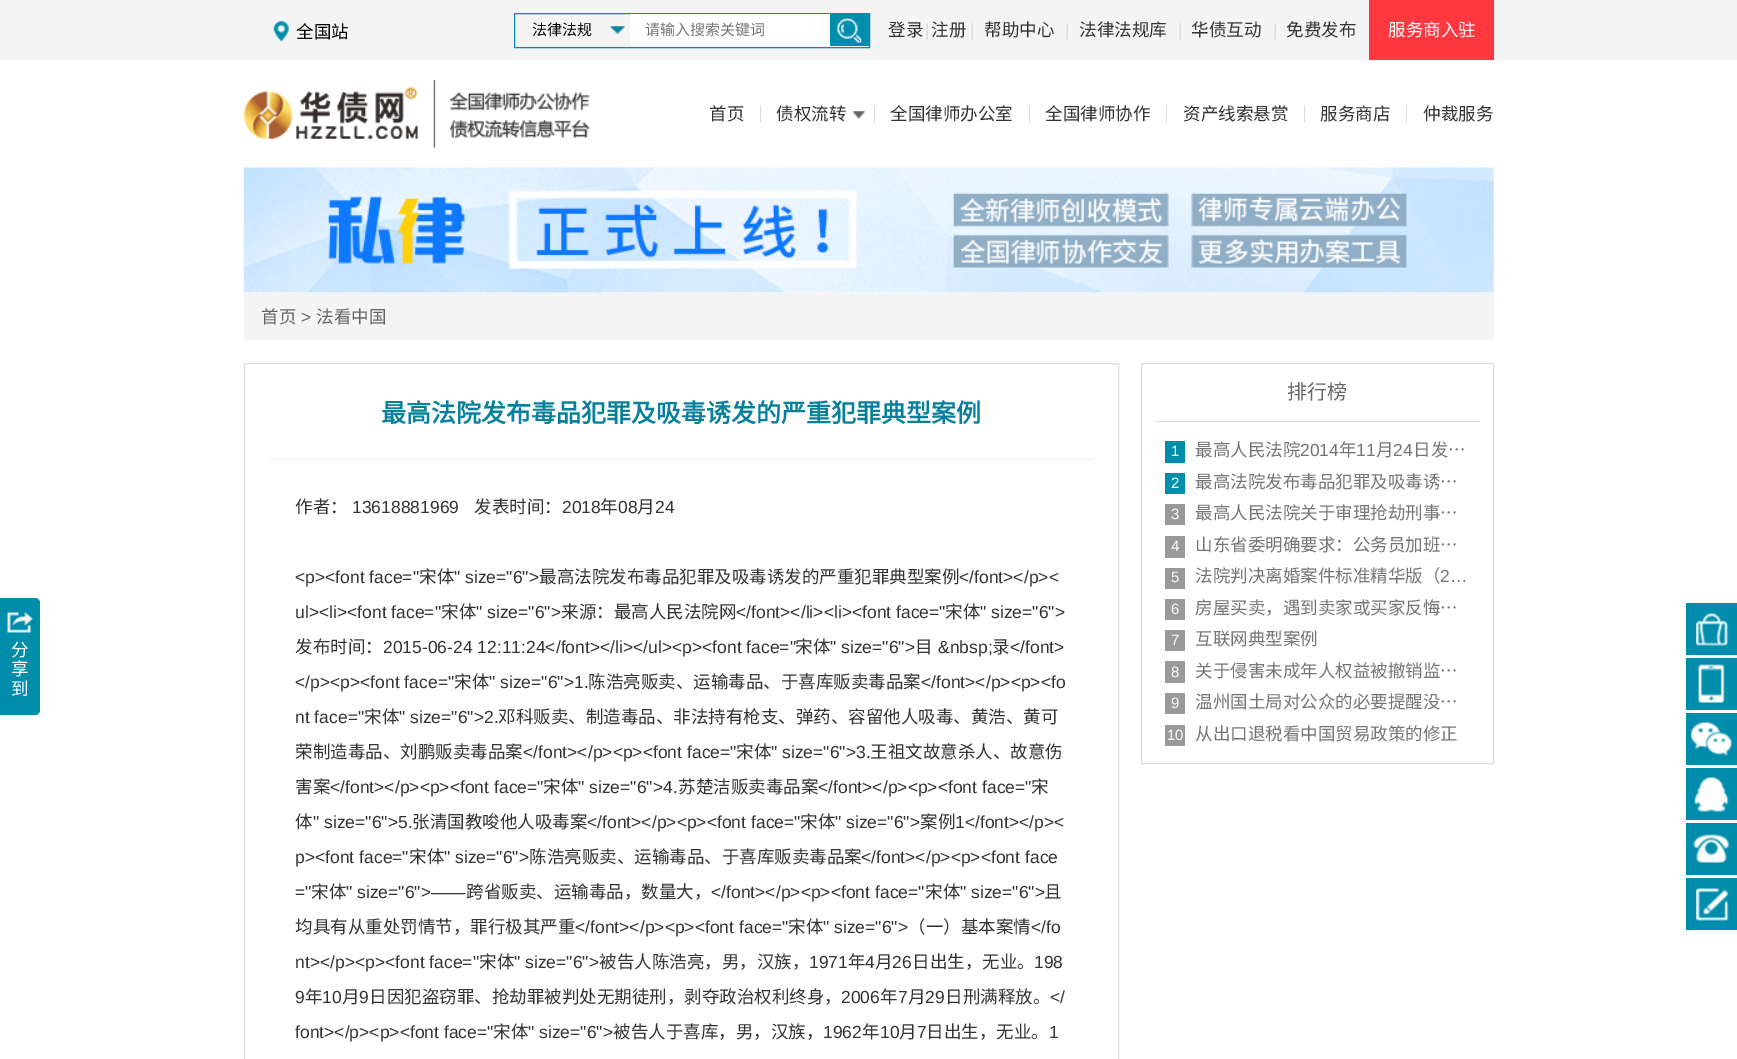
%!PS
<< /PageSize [1737 1059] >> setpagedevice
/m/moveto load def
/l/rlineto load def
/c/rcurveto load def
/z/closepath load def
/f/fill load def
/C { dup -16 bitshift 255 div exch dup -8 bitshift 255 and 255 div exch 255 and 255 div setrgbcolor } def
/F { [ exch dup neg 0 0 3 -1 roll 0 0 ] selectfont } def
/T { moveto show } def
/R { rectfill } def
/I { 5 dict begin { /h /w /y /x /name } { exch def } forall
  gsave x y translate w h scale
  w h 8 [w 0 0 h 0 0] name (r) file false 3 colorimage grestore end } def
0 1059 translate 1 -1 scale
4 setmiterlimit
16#FFFFFF C
0 0 1737 1059 R
16#F4F4F4 C
0 0 1737 60 R
(1.rgb) 273 21 16 21 I
/NotoSansCJKSC-Regular 17.5 F
16#000000 C
(全国站) 296 38 T
16#008DAC C
514.5 13.5 355 34 rectstroke
/NotoSansCJKSC-Regular 15 F
16#000000 C
(法律法规) 532 35 T
(2.rgb) 610 26 15 8 I
16#FFFFFF C
630 14 200 32 R
16#757575 C
(请输入搜索关键词) 645 35 T
16#008DAC C
830 14 39 32 R
(3.rgb) 837 18 25 25 I
/NotoSansCJKSC-Regular 17.5 F
16#333333 C
(登录) 888 36 T
/LiberationSans-Regular 17.5 F
16#DDDDDD C
(|) 925 36 T
/NotoSansCJKSC-Regular 17.5 F
16#333333 C
(注册) 931 36 T
/LiberationSans-Regular 17.5 F
16#DDDDDD C
(|) 970 36 T
/NotoSansCJKSC-Regular 17.5 F
16#333333 C
(帮助中心) 984 36 T
/LiberationSans-Regular 17.5 F
16#DDDDDD C
(|) 1065 36 T
/NotoSansCJKSC-Regular 17.5 F
16#333333 C
(法律法规库) 1079 36 T
/LiberationSans-Regular 17.5 F
16#DDDDDD C
(|) 1178 36 T
/NotoSansCJKSC-Regular 17.5 F
16#333333 C
(华债互动) 1191 36 T
/LiberationSans-Regular 17.5 F
16#DDDDDD C
(|) 1273 36 T
/NotoSansCJKSC-Regular 17.5 F
16#333333 C
(免费发布) 1286 36 T
16#FF373F C
1369 0 125 60 R
16#FFFFFF C
(服务商入驻) 1388 36 T
(4.rgb) 243 80 347 68 I
16#DDDDDD C
760 105 1 18 R
16#333333 C
(首页) 709 120 T
16#DDDDDD C
874 105 1 18 R
16#333333 C
(债权流转) 776 120 T
(5.rgb) 852 111 13 8 I
16#DDDDDD C
1029 105 1 18 R
16#333333 C
(全国律师办公室) 890 120 T
16#DDDDDD C
1166 105 1 18 R
16#333333 C
(全国律师协作) 1045 120 T
16#DDDDDD C
1304 105 1 18 R
16#333333 C
(资产线索悬赏) 1183 120 T
16#DDDDDD C
1406 105 1 18 R
16#333333 C
(服务商店) 1320 120 T
(仲裁服务) 1423 120 T
(6.rgb) 243 167 1251 126 I
16#F4F4F4 C
244 293 1250 47 R
16#666666 C
(首页) 261 323 T
/LiberationSans-Regular 17.5 F
(>) 301 323 T
/NotoSansCJKSC-Regular 17.5 F
(法看中国) 316 323 T
16#008DAC C
0 598 m 35 0 l 3 0 5 2 5 5 c 0 107 l 0 3 -2 5 -5 5 c -35 0 l z f
(7.rgb) 7 612 26 21 I
16#FFFFFF C
(分) 11 656 T
(享) 11 675 T
(到) 11 695 T
16#DDDDDD C
244.5 363.5 874 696 rectstroke
16#EEEEEE C
270 459 823 1 R
/NotoSansCJKSC-Bold 25 F
16#07809B C
(最高法院发布毒品犯罪及吸毒诱发的严重犯罪典型案例) 381 422 T
/NotoSansCJKSC-Regular 17.5 F
16#333333 C
(作者：) 295 513 T
/LiberationSans-Regular 17.5 F
(13618881969) 352 513 T
/NotoSansCJKSC-Regular 17.5 F
(发表时间：) 474 513 T
/LiberationSans-Regular 17.5 F
(2018) 562 513 T
/NotoSansCJKSC-Regular 17.5 F
(年) 600 513 T
/LiberationSans-Regular 17.5 F
(08) 618 513 T
/NotoSansCJKSC-Regular 17.5 F
(月) 637 513 T
/LiberationSans-Regular 17.5 F
(24) 655 513 T
(<p><font face=") 295 583 T
/NotoSansCJKSC-Regular 17.5 F
(宋体) 419 583 T
/LiberationSans-Regular 17.5 F
(" size="6">) 454 583 T
/NotoSansCJKSC-Regular 17.5 F
(最高法院发布毒品犯罪及吸毒诱发的严重犯罪典型案例) 539 583 T
/LiberationSans-Regular 17.5 F
(</font></p><) 959 583 T
(ul><li><font face=") 295 618 T
/NotoSansCJKSC-Regular 17.5 F
(宋体) 441 618 T
/LiberationSans-Regular 17.5 F
(" size="6">) 476 618 T
/NotoSansCJKSC-Regular 17.5 F
(来源：最高人民法院网) 561 618 T
/LiberationSans-Regular 17.5 F
(</font></li><li><font face=") 736 618 T
/NotoSansCJKSC-Regular 17.5 F
(宋体) 945 618 T
/LiberationSans-Regular 17.5 F
(" size="6">) 980 618 T
/NotoSansCJKSC-Regular 17.5 F
(发布时间：) 295 653 T
/LiberationSans-Regular 17.5 F
(2015-06-24 12:11:24</font></li></ul><p><font face=") 383 653 T
/NotoSansCJKSC-Regular 17.5 F
(宋体) 795 653 T
/LiberationSans-Regular 17.5 F
(" size="6">) 830 653 T
/NotoSansCJKSC-Regular 17.5 F
(目) 915 653 T
/LiberationSans-Regular 17.5 F
(&nbsp;) 938 653 T
/NotoSansCJKSC-Regular 17.5 F
(录) 992 653 T
/LiberationSans-Regular 17.5 F
(</font>) 1010 653 T
(</p><p><font face=") 295 688 T
/NotoSansCJKSC-Regular 17.5 F
(宋体) 454 688 T
/LiberationSans-Regular 17.5 F
(" size="6">1.) 489 688 T
/NotoSansCJKSC-Regular 17.5 F
(陈浩亮贩卖、运输毒品、于喜库贩卖毒品案) 588 688 T
/LiberationSans-Regular 17.5 F
(</font></p><p><fo) 921 688 T
(nt face=") 295 723 T
/NotoSansCJKSC-Regular 17.5 F
(宋体) 364 723 T
/LiberationSans-Regular 17.5 F
(" size="6">2.) 399 723 T
/NotoSansCJKSC-Regular 17.5 F
(邓科贩卖、制造毒品、非法持有枪支、弹药、容留他人吸毒、黄浩、黄可) 498 723 T
(荣制造毒品、刘鹏贩卖毒品案) 295 758 T
/LiberationSans-Regular 17.5 F
(</font></p><p><font face=") 523 758 T
/NotoSansCJKSC-Regular 17.5 F
(宋体) 736 758 T
/LiberationSans-Regular 17.5 F
(" size="6">3.) 771 758 T
/NotoSansCJKSC-Regular 17.5 F
(王祖文故意杀人、故意伤) 870 758 T
(害案) 295 793 T
/LiberationSans-Regular 17.5 F
(</font></p><p><font face=") 330 793 T
/NotoSansCJKSC-Regular 17.5 F
(宋体) 543 793 T
/LiberationSans-Regular 17.5 F
(" size="6">4.) 578 793 T
/NotoSansCJKSC-Regular 17.5 F
(苏楚洁贩卖毒品案) 678 793 T
/LiberationSans-Regular 17.5 F
(</font></p><p><font face=") 818 793 T
/NotoSansCJKSC-Regular 17.5 F
(宋) 1031 793 T
(体) 295 828 T
/LiberationSans-Regular 17.5 F
(" size="6">5.) 313 828 T
/NotoSansCJKSC-Regular 17.5 F
(张清国教唆他人吸毒案) 412 828 T
/LiberationSans-Regular 17.5 F
(</font></p><p><font face=") 587 828 T
/NotoSansCJKSC-Regular 17.5 F
(宋体) 800 828 T
/LiberationSans-Regular 17.5 F
(" size="6">) 835 828 T
/NotoSansCJKSC-Regular 17.5 F
(案例) 920 828 T
/LiberationSans-Regular 17.5 F
(1</font></p><) 955 828 T
(p><font face=") 295 863 T
/NotoSansCJKSC-Regular 17.5 F
(宋体) 409 863 T
/LiberationSans-Regular 17.5 F
(" size="6">) 444 863 T
/NotoSansCJKSC-Regular 17.5 F
(陈浩亮贩卖、运输毒品、于喜库贩卖毒品案) 529 863 T
/LiberationSans-Regular 17.5 F
(</font></p><p><font face) 861 863 T
(=") 295 898 T
/NotoSansCJKSC-Regular 17.5 F
(宋体) 311 898 T
/LiberationSans-Regular 17.5 F
(" size="6">——) 346 898 T
/NotoSansCJKSC-Regular 17.5 F
(跨省贩卖、运输毒品，数量大，) 466 898 T
/LiberationSans-Regular 17.5 F
(</font></p><p><font face=") 711 898 T
/NotoSansCJKSC-Regular 17.5 F
(宋体) 925 898 T
/LiberationSans-Regular 17.5 F
(" size="6">) 960 898 T
/NotoSansCJKSC-Regular 17.5 F
(且) 1044 898 T
(均具有从重处罚情节，罪行极其严重) 295 933 T
/LiberationSans-Regular 17.5 F
(</font></p><p><font face=") 575 933 T
/NotoSansCJKSC-Regular 17.5 F
(宋体) 788 933 T
/LiberationSans-Regular 17.5 F
(" size="6">) 823 933 T
/NotoSansCJKSC-Regular 17.5 F
(（一）基本案情) 908 933 T
/LiberationSans-Regular 17.5 F
(</fo) 1031 933 T
(nt></p><p><font face=") 295 968 T
/NotoSansCJKSC-Regular 17.5 F
(宋体) 479 968 T
/LiberationSans-Regular 17.5 F
(" size="6">) 514 968 T
/NotoSansCJKSC-Regular 17.5 F
(被告人陈浩亮，男，汉族，) 599 968 T
/LiberationSans-Regular 17.5 F
(1971) 809 968 T
/NotoSansCJKSC-Regular 17.5 F
(年) 848 968 T
/LiberationSans-Regular 17.5 F
(4) 865 968 T
/NotoSansCJKSC-Regular 17.5 F
(月) 875 968 T
/LiberationSans-Regular 17.5 F
(26) 892 968 T
/NotoSansCJKSC-Regular 17.5 F
(日出生，无业。) 912 968 T
/LiberationSans-Regular 17.5 F
(198) 1034 968 T
(9) 295 1003 T
/NotoSansCJKSC-Regular 17.5 F
(年) 305 1003 T
/LiberationSans-Regular 17.5 F
(10) 322 1003 T
/NotoSansCJKSC-Regular 17.5 F
(月) 342 1003 T
/LiberationSans-Regular 17.5 F
(9) 359 1003 T
/NotoSansCJKSC-Regular 17.5 F
(日因犯盗窃罪、抢劫罪被判处无期徒刑，剥夺政治权利终身，) 369 1003 T
/LiberationSans-Regular 17.5 F
(2006) 841 1003 T
/NotoSansCJKSC-Regular 17.5 F
(年) 880 1003 T
/LiberationSans-Regular 17.5 F
(7) 898 1003 T
/NotoSansCJKSC-Regular 17.5 F
(月) 908 1003 T
/LiberationSans-Regular 17.5 F
(29) 925 1003 T
/NotoSansCJKSC-Regular 17.5 F
(日刑满释放。) 945 1003 T
/LiberationSans-Regular 17.5 F
(</) 1050 1003 T
(font></p><p><font face=") 295 1038 T
/NotoSansCJKSC-Regular 17.5 F
(宋体) 493 1038 T
/LiberationSans-Regular 17.5 F
(" size="6">) 528 1038 T
/NotoSansCJKSC-Regular 17.5 F
(被告人于喜库，男，汉族，) 613 1038 T
/LiberationSans-Regular 17.5 F
(1962) 823 1038 T
/NotoSansCJKSC-Regular 17.5 F
(年) 862 1038 T
/LiberationSans-Regular 17.5 F
(10) 880 1038 T
/NotoSansCJKSC-Regular 17.5 F
(月) 899 1038 T
/LiberationSans-Regular 17.5 F
(7) 917 1038 T
/NotoSansCJKSC-Regular 17.5 F
(日出生，无业。) 926 1038 T
/LiberationSans-Regular 17.5 F
(1) 1049 1038 T
16#DDDDDD C
1141.5 363.5 352 400 rectstroke
1155 421 325 1 R
/NotoSansCJKSC-Regular 20 F
16#666666 C
(排行榜) 1287 399 T
16#008DAC C
1165 441 20 22 R
/LiberationSans-Regular 15 F
16#FFFFFF C
(1) 1171 456 T
/NotoSansCJKSC-Regular 17.5 F
16#757575 C
(最高人民法院) 1195 456 T
/LiberationSans-Regular 17.5 F
(2014) 1300 456 T
/NotoSansCJKSC-Regular 17.5 F
(年) 1339 456 T
/LiberationSans-Regular 17.5 F
(11) 1356 456 T
/NotoSansCJKSC-Regular 17.5 F
(月) 1376 456 T
/LiberationSans-Regular 17.5 F
(24) 1393 456 T
/NotoSansCJKSC-Regular 17.5 F
(日发…) 1413 456 T
16#008DAC C
1165 473 20 21 R
/LiberationSans-Regular 15 F
16#FFFFFF C
(2) 1171 488 T
/NotoSansCJKSC-Regular 17.5 F
16#757575 C
(最高法院发布毒品犯罪及吸毒诱…) 1195 488 T
16#999999 C
1165 504 20 21 R
/LiberationSans-Regular 15 F
16#FFFFFF C
(3) 1171 519 T
/NotoSansCJKSC-Regular 17.5 F
16#757575 C
(最高人民法院关于审理抢劫刑事…) 1195 519 T
16#999999 C
1165 536 20 22 R
/LiberationSans-Regular 15 F
16#FFFFFF C
(4) 1171 551 T
/NotoSansCJKSC-Regular 17.5 F
16#757575 C
(山东省委明确要求：公务员加班…) 1195 551 T
16#999999 C
1165 568 20 21 R
/LiberationSans-Regular 15 F
16#FFFFFF C
(5) 1171 582 T
/NotoSansCJKSC-Regular 17.5 F
16#757575 C
(法院判决离婚案件标准精华版（) 1195 582 T
/LiberationSans-Regular 17.5 F
(2…) 1440 582 T
16#999999 C
1165 599 20 21 R
/LiberationSans-Regular 15 F
16#FFFFFF C
(6) 1171 614 T
/NotoSansCJKSC-Regular 17.5 F
16#757575 C
(房屋买卖，遇到卖家或买家反悔…) 1195 614 T
16#999999 C
1165 630 20 21 R
/LiberationSans-Regular 15 F
16#FFFFFF C
(7) 1171 645 T
/NotoSansCJKSC-Regular 17.5 F
16#757575 C
(互联网典型案例) 1195 645 T
16#999999 C
1165 661 20 22 R
/LiberationSans-Regular 15 F
16#FFFFFF C
(8) 1171 677 T
/NotoSansCJKSC-Regular 17.5 F
16#757575 C
(关于侵害未成年人权益被撤销监…) 1195 677 T
16#999999 C
1165 693 20 21 R
/LiberationSans-Regular 15 F
16#FFFFFF C
(9) 1171 708 T
/NotoSansCJKSC-Regular 17.5 F
16#757575 C
(温州国土局对公众的必要提醒没…) 1195 708 T
16#999999 C
1165 725 20 21 R
/LiberationSans-Regular 15 F
16#FFFFFF C
(10) 1167 740 T
/NotoSansCJKSC-Regular 17.5 F
16#757575 C
(从出口退税看中国贸易政策的修正) 1195 740 T
16#008DAC C
1686 603 51 52 R
(8.rgb) 1696 613 33 33 I
1686 658 51 52 R
(9.rgb) 1698 664 27 39 I
1686 713 51 52 R
(10.rgb) 1691 722 41 34 I
1686 768 51 52 R
(11.rgb) 1694 777 35 35 I
1686 823 51 52 R
(12.rgb) 1693 834 37 29 I
1686 878 51 52 R
(13.rgb) 1696 888 33 33 I
showpage
